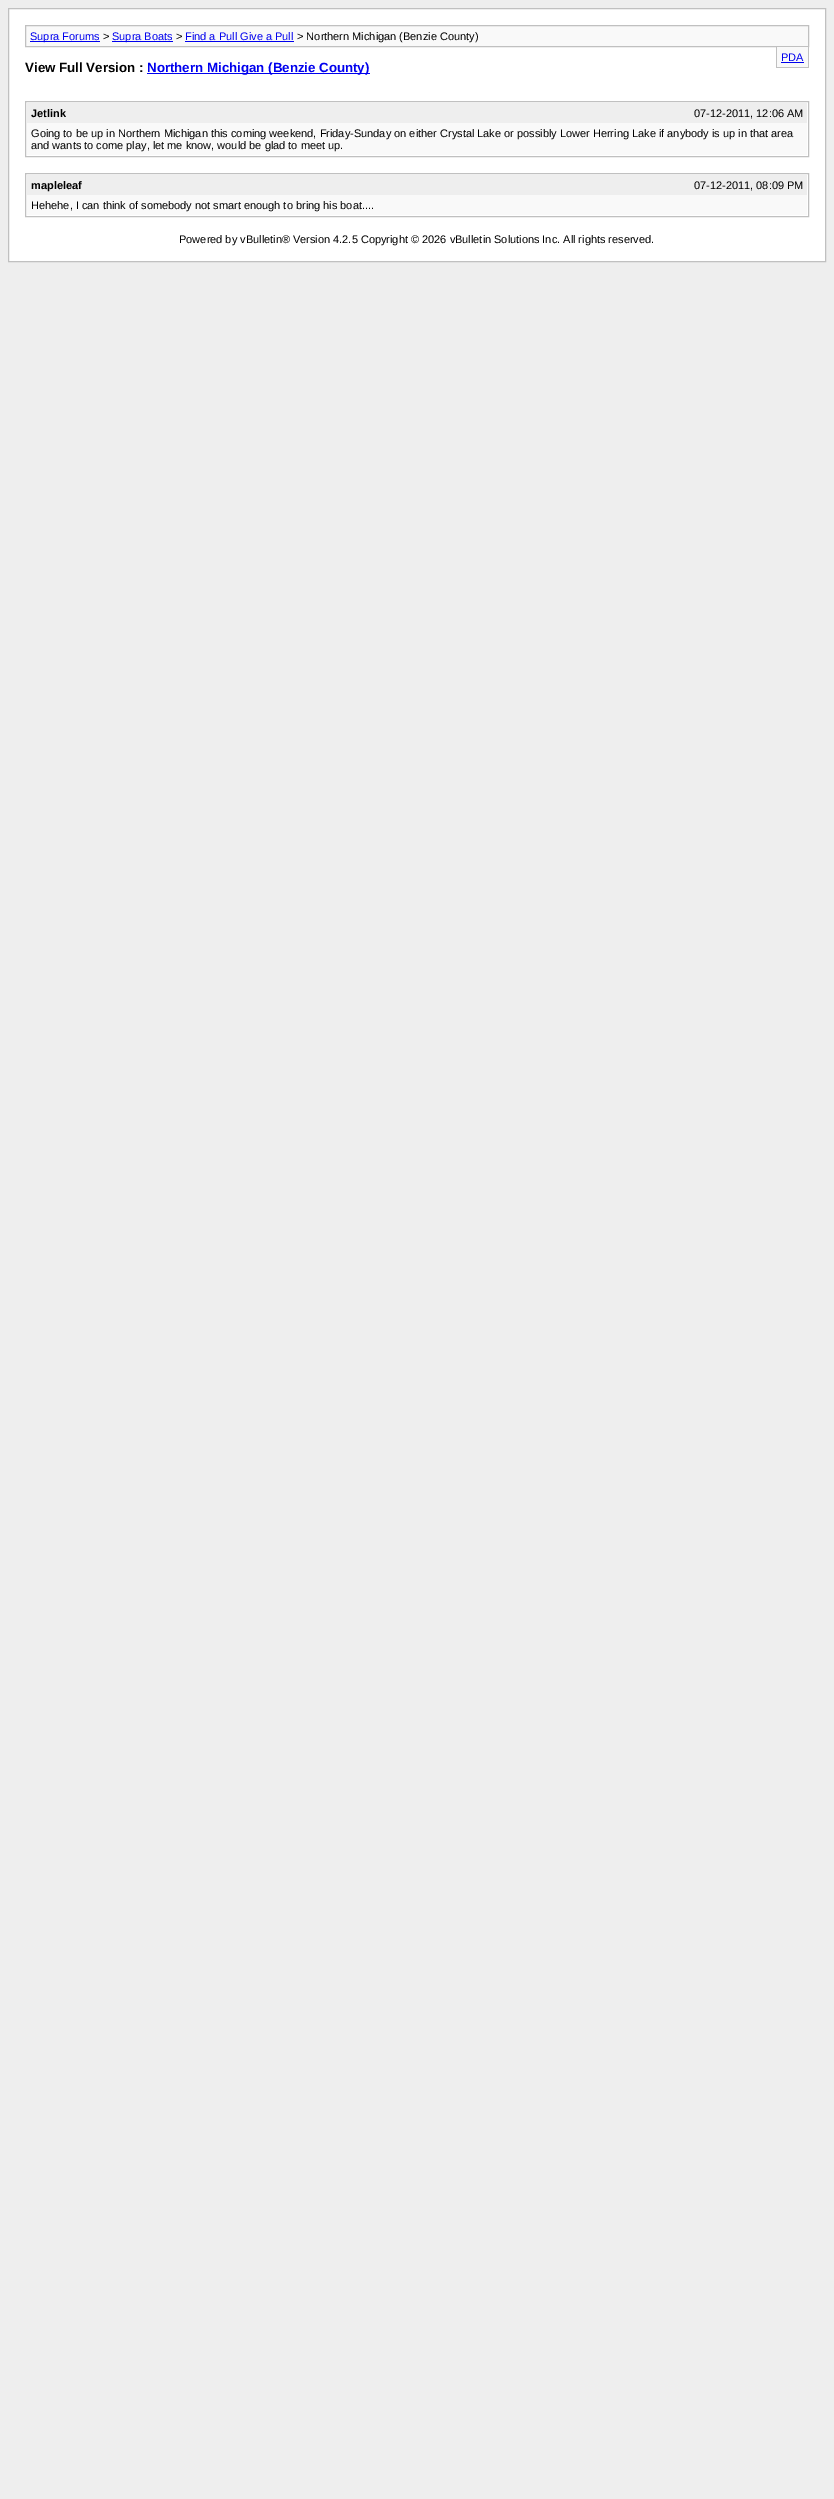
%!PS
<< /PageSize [834 2499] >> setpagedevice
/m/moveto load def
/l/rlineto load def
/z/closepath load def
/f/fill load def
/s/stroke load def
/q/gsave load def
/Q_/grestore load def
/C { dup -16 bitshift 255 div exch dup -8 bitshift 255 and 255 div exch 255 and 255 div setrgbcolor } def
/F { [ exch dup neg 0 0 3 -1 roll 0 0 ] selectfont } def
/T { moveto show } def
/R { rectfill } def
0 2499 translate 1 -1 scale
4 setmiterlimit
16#EEEEEE C
0 0 834 2499 R
16#FFFFFF C
8.5 8.5 m 817 0 l 0 253 l -817 0 l z q f Q_
16#C0C0C0 C
s
16#F9F9F9 C
25.5 25.5 m 783 0 l 0 21 l -783 0 l z q f Q_
16#C0C0C0 C
s
16#0000EE C
30 41 70 1 R
/LiberationSans-Regular 11 F
(Supra Forums) 30 40 T
16#000000 C
(>) 103 40 T
16#0000EE C
112 41 61 1 R
(Supra Boats) 112 40 T
16#000000 C
(>) 176 40 T
16#0000EE C
(Find a Pull Give a Pull) 185 40 T
185 41 109 1 R
16#000000 C
(> Northern Michigan \(Benzie County\)) 297 40 T
16#F9F9F9 C
777 47 31 20 R
16#C0C0C0 C
808 47 1 21 R
776 67 33 1 R
776 47 1 21 R
16#0000EE C
(PDA) 781 61 T
781 62 23 1 R
/LiberationSans-Bold 13.3 F
16#000000 C
(View Full Version :) 25 72 T
16#0000EE C
147 73 223 1 R
(Northern Michigan \(Benzie County\)) 147 72 T
16#C0C0C0 C
25.5 101.5 783 55 rectstroke
16#EEEEEE C
27 103 780 20 R
/LiberationSans-Bold 11 F
16#000000 C
(Jetlink) 31 117 T
/LiberationSans-Regular 11 F
(07-12-2011, 12:06 AM) 694 117 T
16#F9F9F9 C
27 123 780 32 R
16#000000 C
(Going to be up in Northern Michigan this coming weekend, Friday-Sunday on either Crystal Lake or possibly Lower Herring Lake if anybody is up in that area) 31 137 T
(and wants to come play, let me know, would be glad to meet up.) 31 149 T
16#C0C0C0 C
25.5 173.5 783 43 rectstroke
16#EEEEEE C
27 175 780 20 R
/LiberationSans-Bold 11 F
16#000000 C
(mapleleaf) 31 189 T
/LiberationSans-Regular 11 F
(07-12-2011, 08:09 PM) 694 189 T
16#F9F9F9 C
27 195 780 20 R
16#000000 C
(Hehehe, I can think of somebody not smart enough to bring his boat....) 31 209 T
(Powered by vBulletin® Version 4.2.5 Copyright © 2026 vBulletin Solutions Inc. All rights reserved.) 179 243 T
showpage
